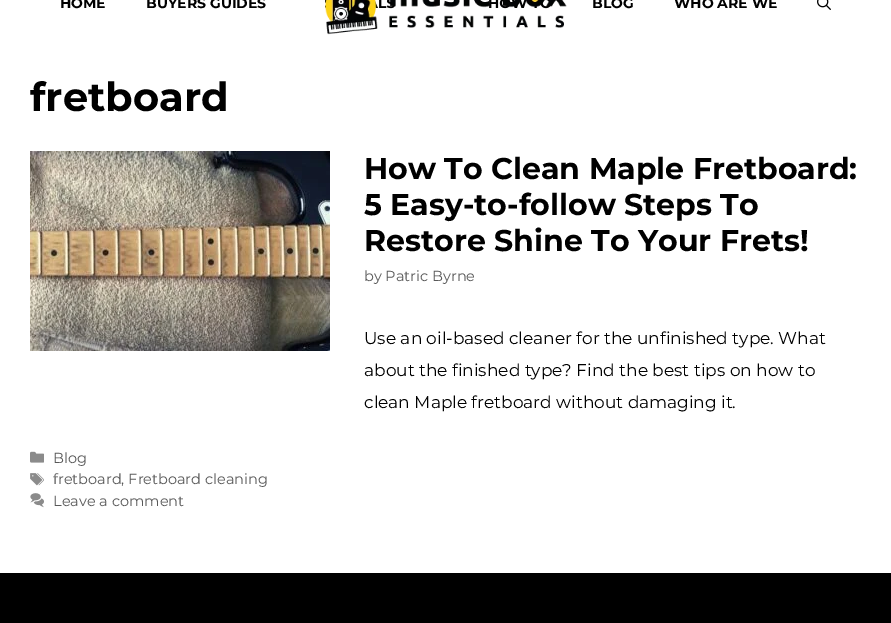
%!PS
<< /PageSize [891 623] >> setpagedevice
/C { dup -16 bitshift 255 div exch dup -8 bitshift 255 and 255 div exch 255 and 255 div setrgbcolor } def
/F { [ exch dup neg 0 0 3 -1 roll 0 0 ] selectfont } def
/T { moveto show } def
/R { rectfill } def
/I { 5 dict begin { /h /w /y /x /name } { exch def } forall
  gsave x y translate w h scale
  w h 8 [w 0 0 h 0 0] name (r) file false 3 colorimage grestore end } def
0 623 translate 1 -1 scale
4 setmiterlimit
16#FFFFFF C
0 0 891 623 R
/Montserrat-Bold 14 F
16#000000 C
(HOME) 60 8 T
(BUYERS GUIDES) 146 8 T
(BLOG) 592 8 T
(WHO ARE WE) 674 8 T
(1.rgb) 817 0 14 10 I
(2.rgb) 325 0 242 35 I
/Montserrat-Bold 40 F
(fretboard) 30 111 T
(3.rgb) 30 151 300 200 I
/Montserrat-Bold 30 F
(How To Clean Maple Fretboard:) 364 179 T
(5 Easy-to-follow Steps To) 364 215 T
(Restore Shine To Your Frets!) 364 251 T
/Montserrat-Regular 14.5 F
16#595959 C
(by Patric Byrne) 364 281 T
/Montserrat-Regular 17 F
16#000000 C
(Use an oil-based cleaner for the unfinished type. What) 364 344 T
(about the finished type? Find the best tips on how to) 364 376 T
(clean Maple fretboard without damaging it.) 364 408 T
(4.rgb) 30 451 14 12 I
/Montserrat-Regular 14.5 F
16#595959 C
(Blog) 53 463 T
(5.rgb) 30 473 14 13 I
(fretboard, Fretboard cleaning) 53 484 T
(6.rgb) 30 493 14 15 I
(Leave a comment) 53 506 T
16#000000 C
0 573 891 50 R
showpage
